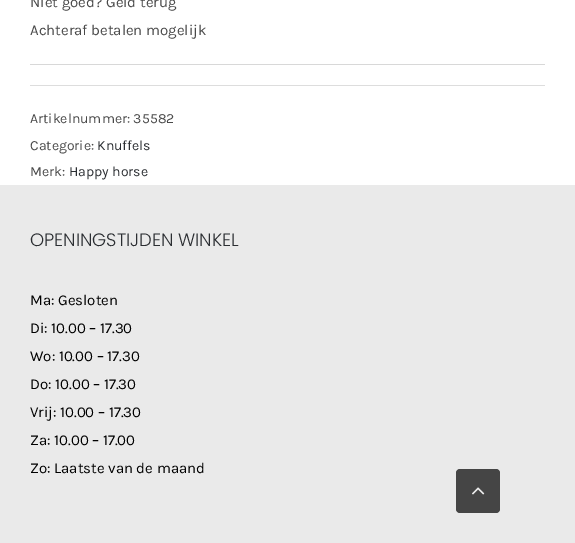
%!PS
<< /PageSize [575 543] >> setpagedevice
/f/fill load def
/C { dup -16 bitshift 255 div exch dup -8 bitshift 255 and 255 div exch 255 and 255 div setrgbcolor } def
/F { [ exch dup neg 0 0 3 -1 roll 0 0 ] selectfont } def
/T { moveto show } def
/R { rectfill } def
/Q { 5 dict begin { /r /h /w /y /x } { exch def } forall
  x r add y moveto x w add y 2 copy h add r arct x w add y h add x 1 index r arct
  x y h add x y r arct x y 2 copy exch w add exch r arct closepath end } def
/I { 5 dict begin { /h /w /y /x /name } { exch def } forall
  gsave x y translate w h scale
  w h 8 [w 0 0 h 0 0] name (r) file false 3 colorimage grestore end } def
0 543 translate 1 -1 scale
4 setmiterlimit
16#FFFFFF C
0 0 575 543 R
16#D8D8D8 C
30 64 515 1 R
/Karla-Regular 15 F
16#494949 C
(Niet goed? Geld terug) 30 7 T
(Achteraf betalen mogelijk) 30 35 T
16#DDDDDD C
30 85 515 1 R
/Karla-Regular 14 F
16#494949 C
(Artikelnummer: 35582) 30 123 T
(Categorie:) 30 150 T
16#2B2E32 C
(Knuffels) 97 150 T
16#494949 C
(Merk:) 30 176 T
16#2B2E32 C
(Happy horse) 69 176 T
16#EAEAEA C
0 185 575 358 R
/Poppins-Light 18 F
16#2B2E32 C
(OPENINGSTIJDEN WINKEL) 30 246 T
/Karla-Regular 15 F
16#000000 C
(Ma: Gesloten) 30 305 T
(Di: 10.00 – 17.30) 30 333 T
(Wo: 10.00 – 17.30) 30 361 T
(Do: 10.00 – 17.30) 30 389 T
(Vrij: 10.00 – 17.30) 30 417 T
(Za: 10.00 – 17.00) 30 445 T
(Zo: Laatste van de maand) 30 473 T
16#454545 C
456 469 44 44 4 Q f
(1.rgb) 472 487 13 8 I
showpage
